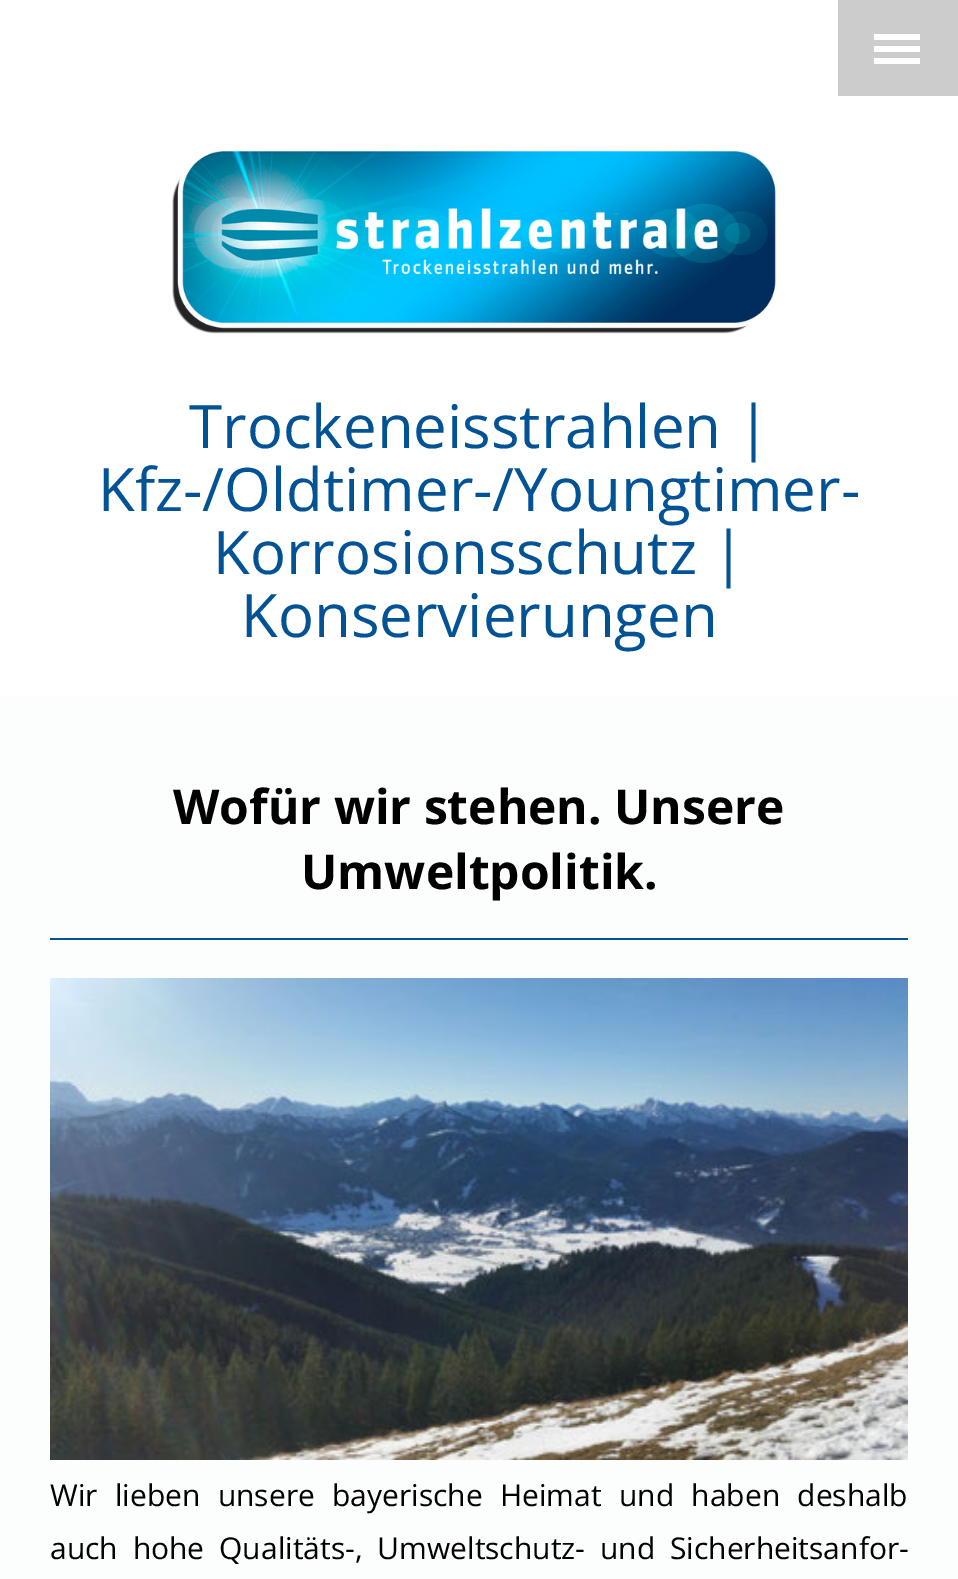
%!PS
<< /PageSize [958 1579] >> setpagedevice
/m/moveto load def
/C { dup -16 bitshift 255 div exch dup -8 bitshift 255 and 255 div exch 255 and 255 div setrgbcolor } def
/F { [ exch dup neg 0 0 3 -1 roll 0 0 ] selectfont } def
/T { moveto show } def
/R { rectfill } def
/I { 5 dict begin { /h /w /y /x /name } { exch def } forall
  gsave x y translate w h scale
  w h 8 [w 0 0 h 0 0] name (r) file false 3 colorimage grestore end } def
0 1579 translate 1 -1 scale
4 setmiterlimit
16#FFFFFF C
0 0 958 1579 R
16#CCCCCC C
838 0 120 96 R
16#FFFFFF C
874 46 46 6 R
874 34 46 6 R
874 58 46 6 R
(1.rgb) 172 150 605 184 I
/OpenSans-Regular 60 F
16#025296 C
(Trockeneisstrahlen |) 189 448 T
(Kfz-/Oldtimer-/Youngtimer-) 98 511 T
(Korrosionsschutz |) 213 574 T
(Konservierungen) 241 637 T
16#FCFDFD C
0 696 958 883 R
/OpenSans-Bold 48 F
16#000000 C
(Wofür wir stehen. Unsere) 173 824 T
(Umweltpolitik.) 301 889 T
16#025296 C
50 938 858 2 R
(2.rgb) 50 978 858 482 I
/OpenSans-Regular 30 F
16#000000 C
50 1506 m 9.5 0 32 (Wir lieben unsere bayerische Heimat und haben deshalb) widthshow
50 1559 m 7 0 32 (auch hohe Qualitäts-, Umweltschutz- und Sicherheitsanfor-) widthshow
showpage
